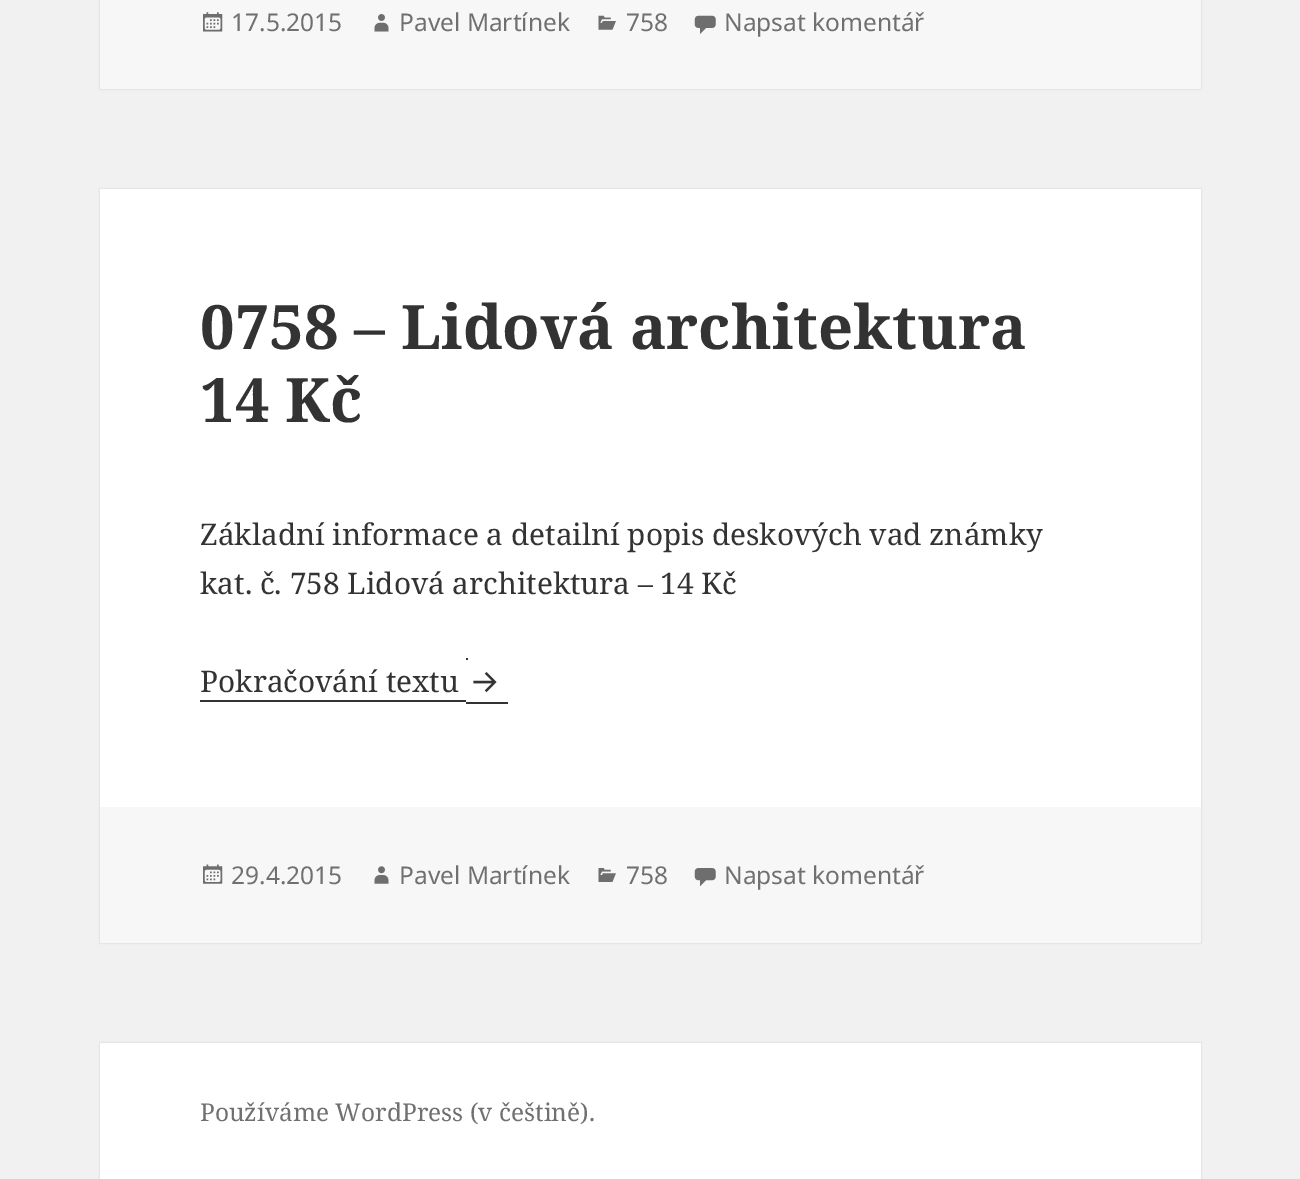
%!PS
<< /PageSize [1300 1179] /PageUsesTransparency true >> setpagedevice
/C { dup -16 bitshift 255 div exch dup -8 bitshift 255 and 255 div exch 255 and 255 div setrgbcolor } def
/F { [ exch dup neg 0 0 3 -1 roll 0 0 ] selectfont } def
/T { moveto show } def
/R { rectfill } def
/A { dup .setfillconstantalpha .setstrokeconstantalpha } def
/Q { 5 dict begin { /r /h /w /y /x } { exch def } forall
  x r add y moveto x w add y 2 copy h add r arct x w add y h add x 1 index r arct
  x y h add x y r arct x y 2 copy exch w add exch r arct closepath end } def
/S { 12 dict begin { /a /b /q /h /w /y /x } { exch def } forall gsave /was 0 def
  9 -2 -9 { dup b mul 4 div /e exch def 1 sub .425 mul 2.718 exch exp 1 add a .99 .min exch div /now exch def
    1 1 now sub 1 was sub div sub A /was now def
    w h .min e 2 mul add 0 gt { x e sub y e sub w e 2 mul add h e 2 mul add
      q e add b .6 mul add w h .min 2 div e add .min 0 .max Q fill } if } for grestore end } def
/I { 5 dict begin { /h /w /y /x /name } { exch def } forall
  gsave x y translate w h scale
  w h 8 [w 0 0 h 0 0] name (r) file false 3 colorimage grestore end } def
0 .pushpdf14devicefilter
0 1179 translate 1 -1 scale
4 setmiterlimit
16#F1F1F1 C
0 0 1300 1179 R
16#000000 C
100 -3 1101 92 0 1 .15 S
16#F7F7F7 C
100 0 1101 89 R
(1.rgb) 203 12 20 20 I
/NotoSans-Regular 24.5 F
16#707070 C
(17.5.2015) 231 31 T
(2.rgb) 374 14 15 18 I
(Pavel Martínek) 399 31 T
(3.rgb) 598 15 18 15 I
(758) 626 31 T
(4.rgb) 694 15 22 19 I
(Napsat komentář) 724 31 T
16#000000 C
100 189 1101 754 0 1 .15 S
16#FFFFFF C
100 189 1101 618 R
/NotoSerif-Bold 61.25 F
16#333333 C
(0758 – Lidová architektura) 200 349 T
(14 Kč) 200 422 T
/NotoSerif-Regular 29.75 F
(Základní informace a detailní popis deskových vad známky) 200 545 T
(kat. č. 758 Lidová architektura – 14 Kč) 200 594 T
200 700 266 2 R
466 658 2 2 R
466 702 42 2 R
(Pokračování textu) 200 692 T
(5.rgb) 473 672 24 21 I
16#F7F7F7 C
100 807 1101 136 R
(6.rgb) 203 864 20 20 I
/NotoSans-Regular 24.5 F
16#707070 C
(29.4.2015) 231 884 T
(7.rgb) 374 866 15 18 I
(Pavel Martínek) 399 884 T
(8.rgb) 598 868 18 14 I
(758) 626 884 T
(9.rgb) 694 868 22 19 I
(Napsat komentář) 724 884 T
16#000000 C
100 1043 1101 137 0 1 .15 S
16#FFFFFF C
100 1043 1101 136 R
/NotoSerif-Regular 24.5 F
16#707070 C
(Používáme WordPress \(v češtině\).) 200 1121 T
.poppdf14devicefilter showpage
